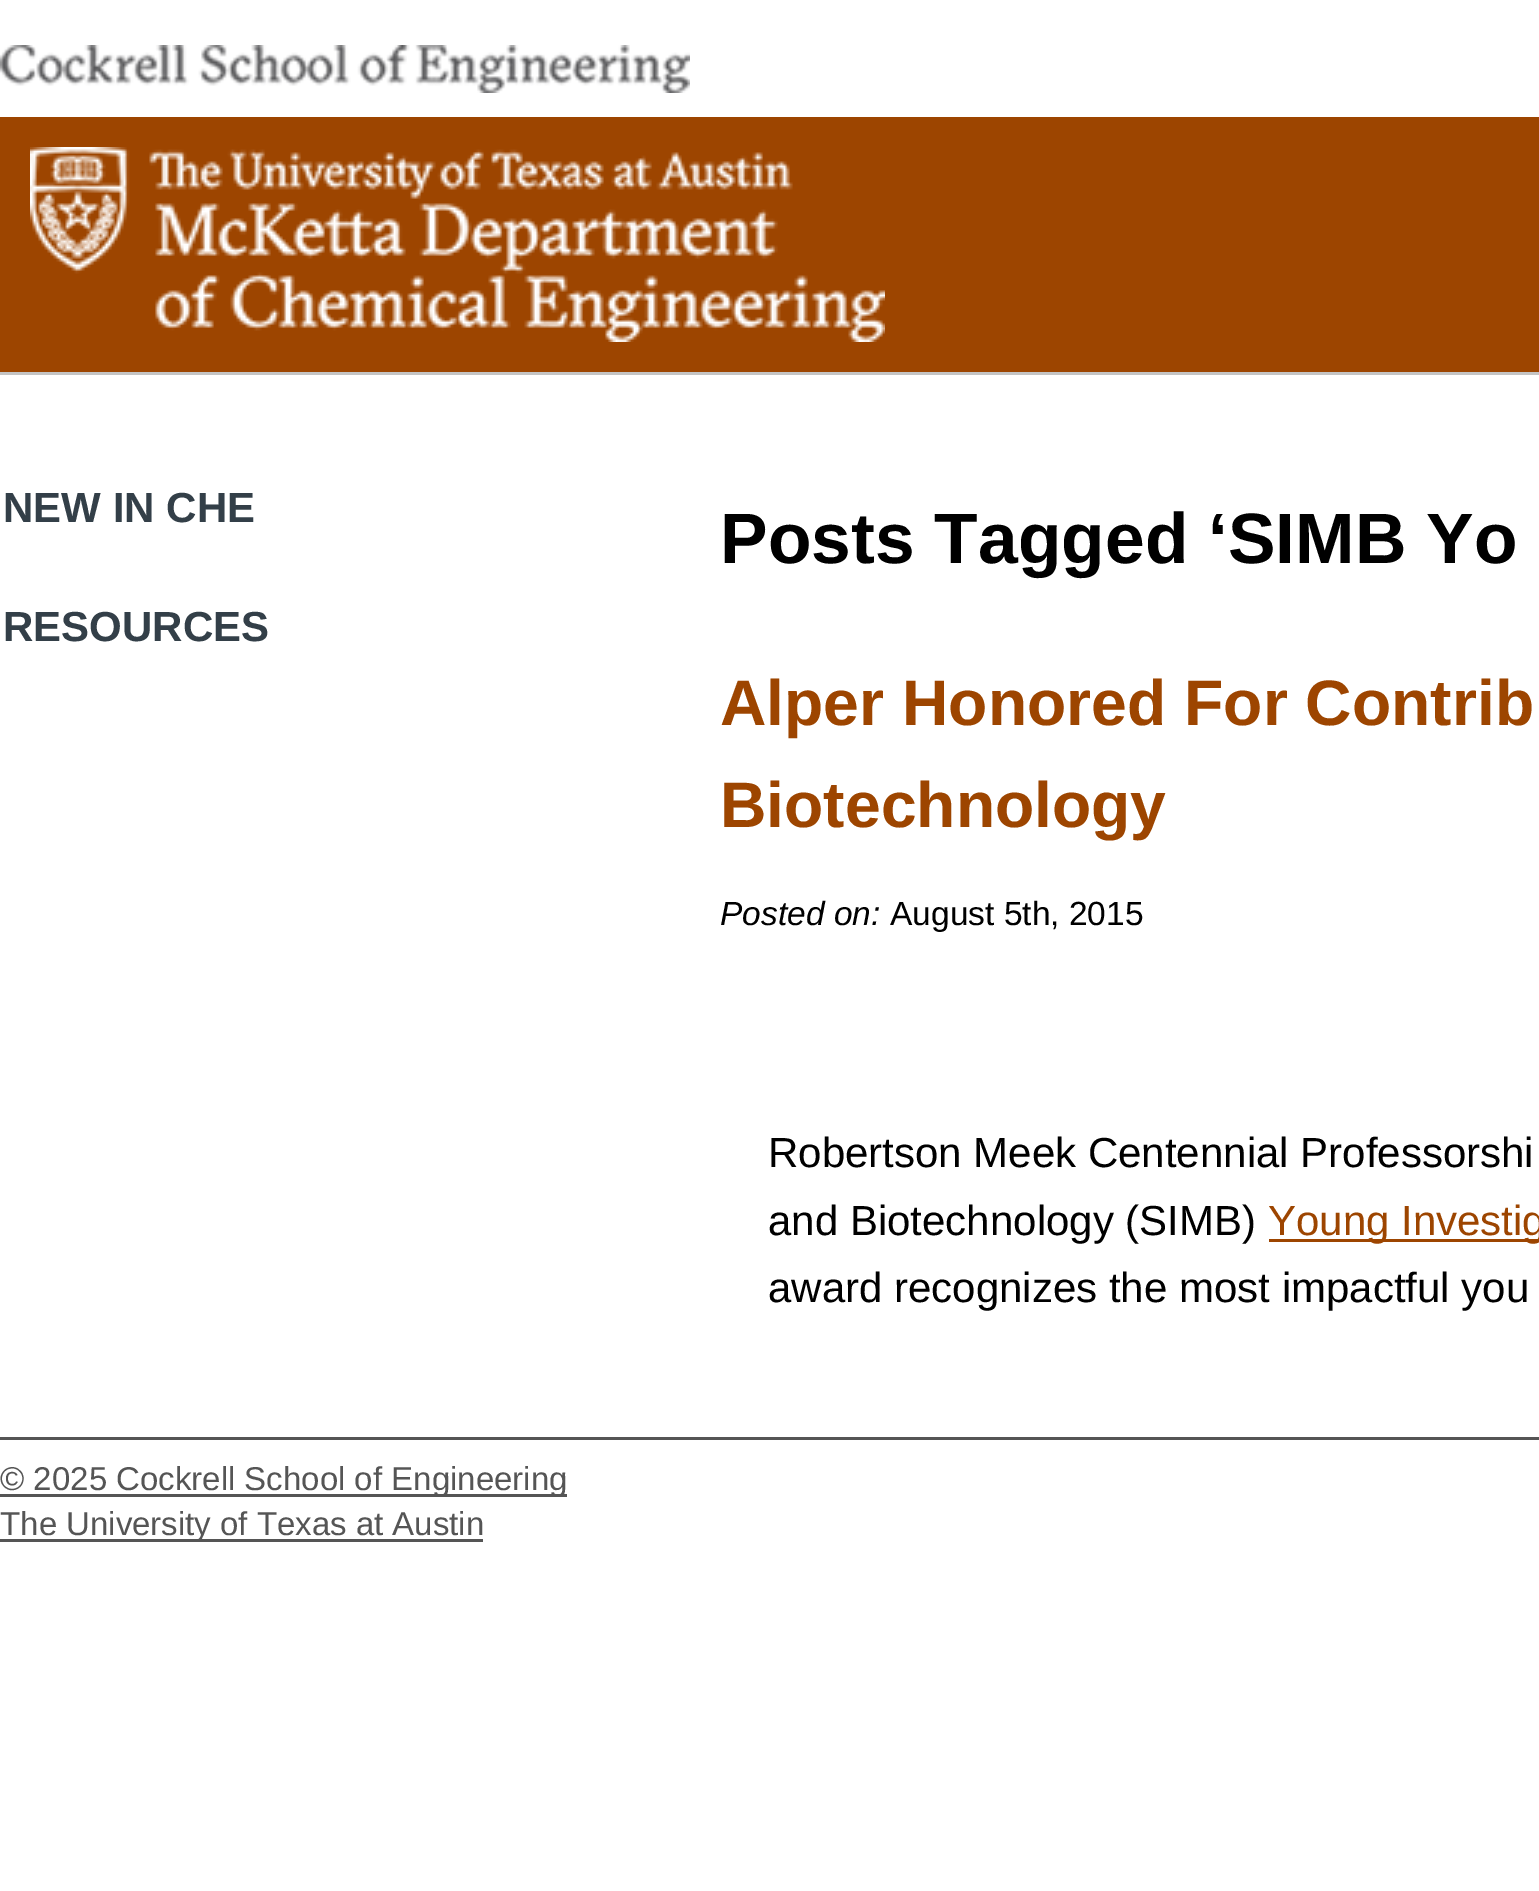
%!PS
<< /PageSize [1539 1891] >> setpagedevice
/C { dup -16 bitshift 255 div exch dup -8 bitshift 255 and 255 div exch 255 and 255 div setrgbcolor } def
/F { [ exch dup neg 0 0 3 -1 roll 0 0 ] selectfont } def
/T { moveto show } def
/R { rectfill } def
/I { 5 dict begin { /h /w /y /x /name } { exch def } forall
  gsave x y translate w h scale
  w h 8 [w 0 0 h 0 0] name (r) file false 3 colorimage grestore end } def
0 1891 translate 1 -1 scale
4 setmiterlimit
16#FFFFFF C
0 0 1539 1891 R
(1.rgb) 0 45 690 48 I
16#9D4500 C
0 117 1539 255 R
(2.rgb) 30 147 855 195 I
16#C4C4C4 C
0 372 1539 3 R
/LiberationSans-Bold 42 F
16#333F48 C
(NEW IN CHE) 3 522 T
(RESOURCES) 3 641 T
/LiberationSans-Bold 71.4 F
16#000000 C
(Posts Tagged ‘SIMB Yo) 720 563 T
/LiberationSans-Bold 64.25 F
16#9D4500 C
(Alper Honored For Contrib) 720 725 T
(Biotechnology) 720 827 T
/LiberationSans-Italic 33.5 F
16#000000 C
(Posted on:) 720 925 T
/LiberationSans-Regular 33.5 F
(August 5th, 2015) 890 925 T
/LiberationSans-Regular 42 F
(Robertson Meek Centennial Professorshi) 768 1167 T
(and Biotechnology \(SIMB\)) 768 1235 T
16#9D4500 C
1269 1239 270 3 R
(Young Investig) 1268 1235 T
16#000000 C
(award recognizes the most impactful you) 768 1302 T
16#555555 C
0 1437 1539 3 R
0 1494 567 3 R
/LiberationSans-Regular 33 F
(© 2025 Cockrell School of Engineering) 0 1490 T
0 1539 483 3 R
(The University of Texas at Austin) 0 1535 T
showpage
